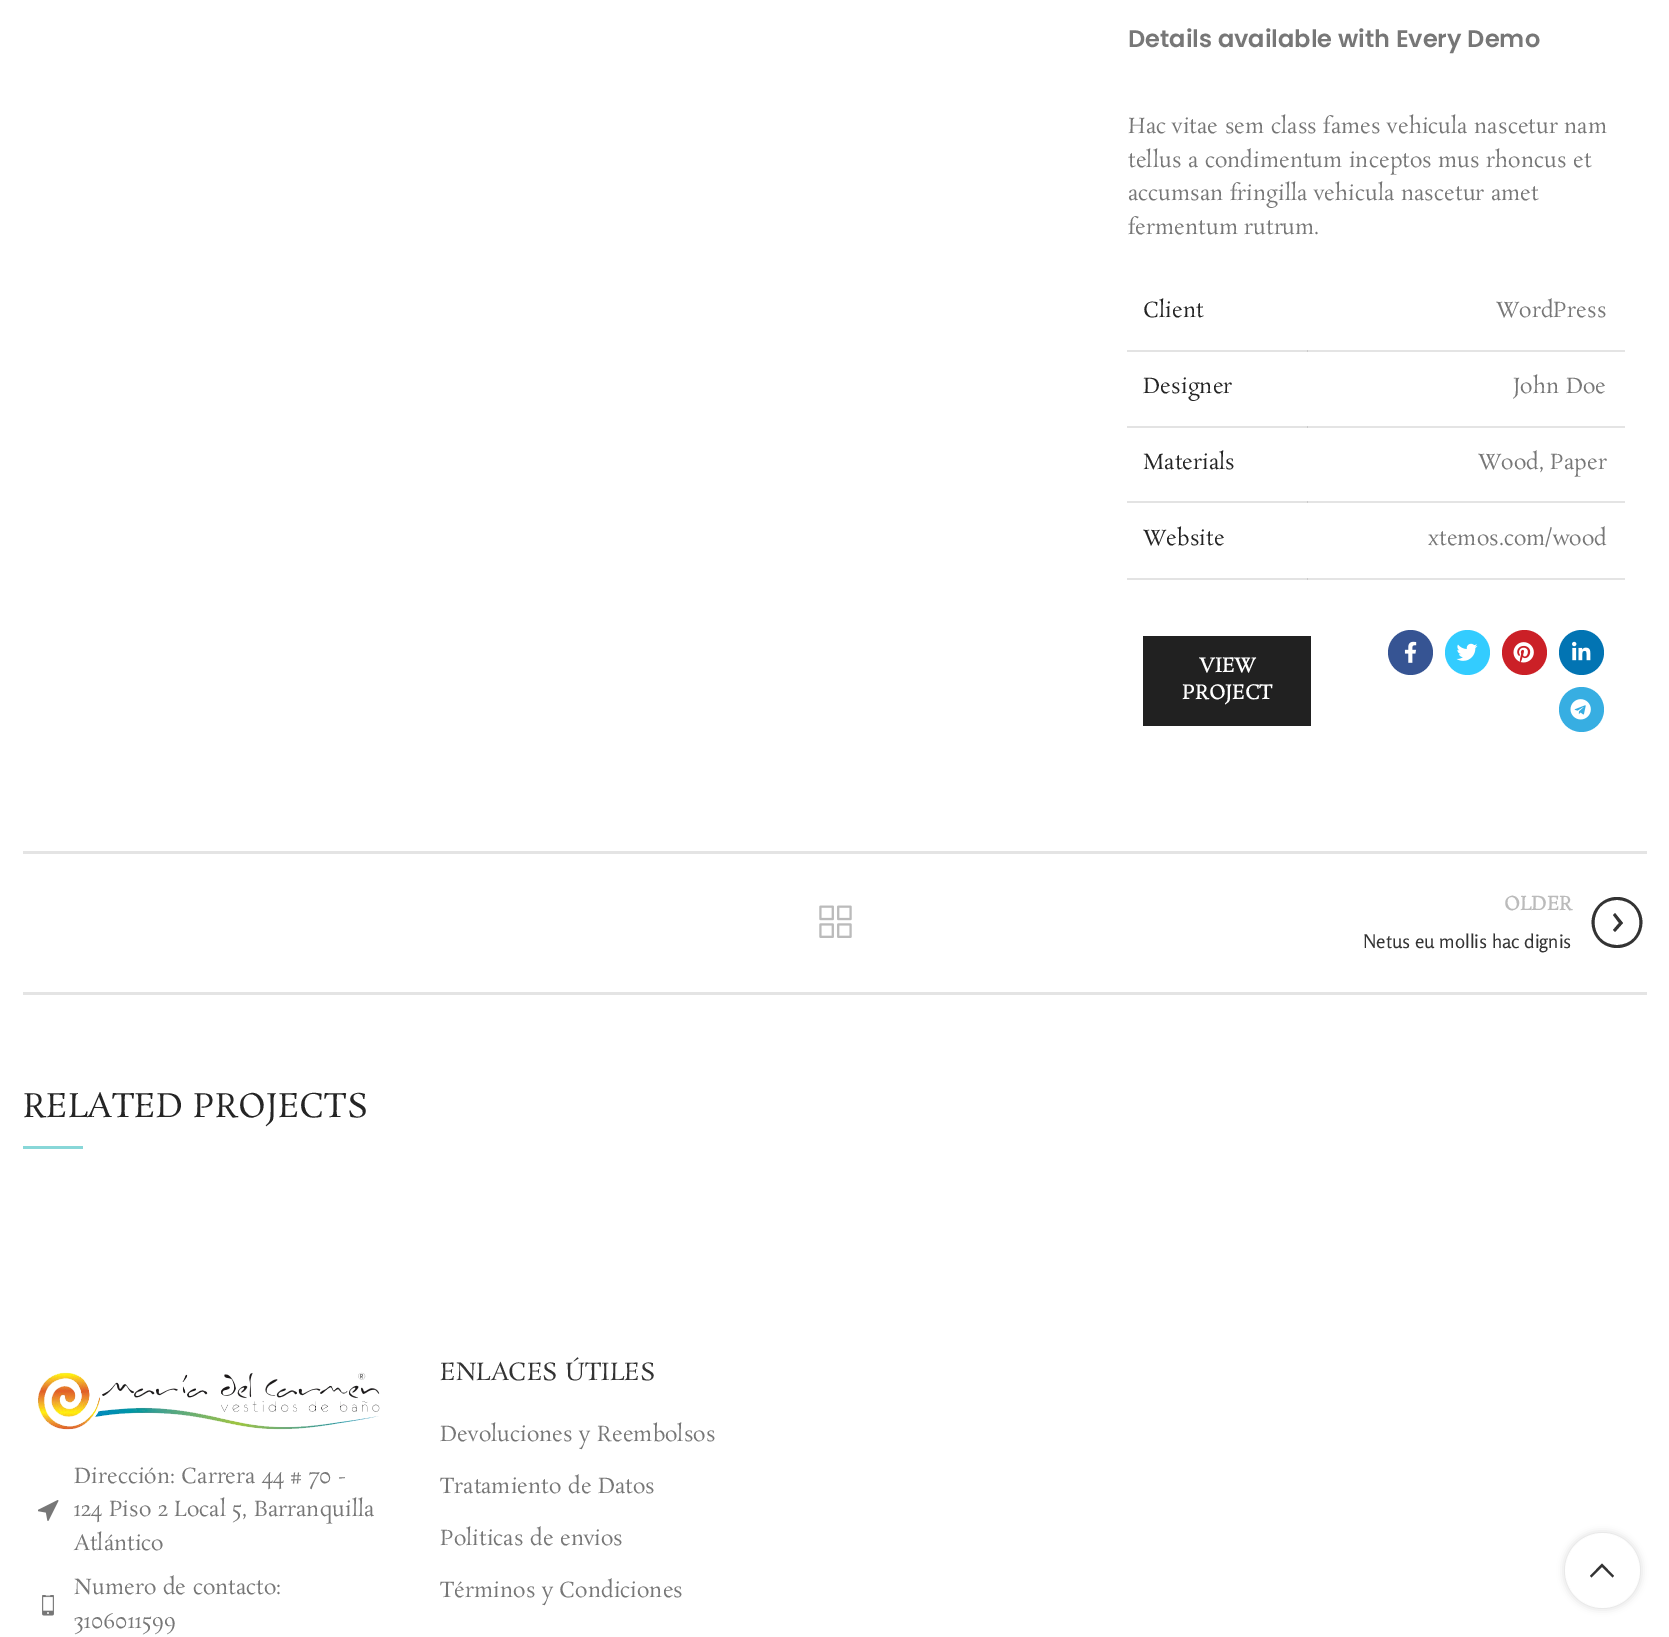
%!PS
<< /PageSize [1669 1637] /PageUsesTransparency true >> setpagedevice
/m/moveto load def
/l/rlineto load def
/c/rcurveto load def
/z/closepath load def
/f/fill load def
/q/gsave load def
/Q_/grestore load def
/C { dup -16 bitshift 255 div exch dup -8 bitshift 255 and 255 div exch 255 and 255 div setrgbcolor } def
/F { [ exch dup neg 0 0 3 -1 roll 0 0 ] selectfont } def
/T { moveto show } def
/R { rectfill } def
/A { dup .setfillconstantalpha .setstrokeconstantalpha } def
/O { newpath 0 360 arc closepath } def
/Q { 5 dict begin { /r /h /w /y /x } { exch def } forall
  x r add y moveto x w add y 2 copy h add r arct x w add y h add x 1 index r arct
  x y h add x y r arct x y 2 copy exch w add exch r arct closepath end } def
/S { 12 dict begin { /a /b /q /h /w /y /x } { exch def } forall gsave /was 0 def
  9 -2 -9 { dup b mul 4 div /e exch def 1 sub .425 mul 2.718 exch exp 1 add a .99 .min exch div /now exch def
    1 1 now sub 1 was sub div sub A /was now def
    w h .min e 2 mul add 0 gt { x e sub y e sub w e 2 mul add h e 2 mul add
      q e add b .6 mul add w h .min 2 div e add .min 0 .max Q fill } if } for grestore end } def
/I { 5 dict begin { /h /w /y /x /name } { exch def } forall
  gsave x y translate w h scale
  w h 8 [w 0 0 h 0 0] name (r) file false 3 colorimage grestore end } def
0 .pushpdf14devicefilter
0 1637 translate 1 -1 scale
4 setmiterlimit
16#FFFFFF C
0 0 1669 1637 R
16#E3E3E3 C
1127 350 181 2 R
1127 426 181 2 R
1127 501 181 2 R
1127 578 181 2 R
/Poppins-SemiBold 24 F
16#777777 C
(Details available with Every Demo) 1128 47 T
/Rosarivo-Regular 21 F
(Hac vitae sem class fames vehicula nascetur nam) 1128 133 T
(tellus a condimentum inceptos mus rhoncus et) 1128 167 T
(accumsan fringilla vehicula nascetur amet) 1128 200 T
(fermentum rutrum.) 1128 234 T
16#242424 C
(Client) 1143 317 T
16#E4E4E4 C
1307 350 318 2 R
16#CBCBCB C
1307 350 1 2 R
16#777777 C
(WordPress) 1496 317 T
16#242424 C
(Designer) 1143 393 T
16#E4E4E4 C
1307 426 318 2 R
16#CBCBCB C
1307 426 1 2 R
16#777777 C
(John Doe) 1513 393 T
16#242424 C
(Materials) 1143 469 T
16#E4E4E4 C
1307 501 318 2 R
16#CBCBCB C
1307 501 1 2 R
16#777777 C
(Wood, Paper) 1478 469 T
16#242424 C
(Website) 1143 545 T
16#E4E4E4 C
1307 578 318 2 R
16#CBCBCB C
1307 578 1 2 R
16#777777 C
(xtemos.com/wood) 1428 545 T
16#212121 C
1143 636 168 90 R
/Rosarivo-Bold 19.5 F
16#FFFFFF C
(VIEW) 1199 672 T
(PROJECT) 1182 699 T
16#365493 C
1410.5 652.5 22.5 O f
(1.rgb) 1404 641 13 22 I
16#33CCFF C
1467.5 652.5 22.5 O f
(2.rgb) 1456 643 22 18 I
16#CB2027 C
1524.5 652.5 22.5 O f
(3.rgb) 1513 642 21 21 I
16#0274B3 C
1581.5 652.5 22.5 O f
(4.rgb) 1572 641 19 20 I
16#37AEE2 C
1581.5 709.5 22.5 O f
(5.rgb) 1570 699 21 21 I
16#E4E4E4 C
23 851 1624 3 R
23 992 1624 3 R
(6.rgb) 819 905 33 33 I
/Rosarivo-Bold 18.9 F
16#BBBBBB C
(OLDER) 1504 910 T
16#333333 C
1617 948 m -24 0 -35 -31 -15 -46 c 4 -3 9 -5 15 -5 c 6 0 11 2 15 5 c 20 15 9 46 -15 46 c z 1617 900 m -30 0 -30 45 0 45 c 30 0 30 -45 0 -45 c z 1615 932 m -2 -2 l 6 -7 l -6 -8 l 2 -2 l 8 10 l z f
/Rosario-Regular 18.9 F
(Netus eu mollis hac dignis) 1363 948 T
/Rosarivo-Regular 33 F
16#242424 C
(RELATED PROJECTS) 23 1117 T
16#88D7D8 C
23 1146 60 3 R
(7.rgb) 38 1372 342 58 I
(8.rgb) 38 1500 21 21 I
/Rosarivo-Regular 21 F
16#777777 C
(Dirección: Carrera 44 # 70 -) 74 1483 T
(124 Piso 2 Local 5, Barranquilla) 74 1516 T
(Atlántico) 74 1550 T
(9.rgb) 42 1595 12 21 I
(Numero de contacto:) 74 1594 T
(3106011599) 74 1628 T
/Rosarivo-Regular 24 F
16#333333 C
(ENLACES ÚTILES) 440 1380 T
/Rosarivo-Regular 21 F
16#777777 C
(Devoluciones y Reembolsos) 440 1441 T
(Tratamiento de Datos) 440 1493 T
(Politicas de envios) 440 1545 T
(Términos y Condiciones) 440 1597 T
q
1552 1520 m 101 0 l 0 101 l -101 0 l z 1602.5 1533 m 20.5 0 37.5 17 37.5 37.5 c 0 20.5 -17 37.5 -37.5 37.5 c -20.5 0 -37.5 -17 -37.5 -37.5 c 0 -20.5 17 -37.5 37.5 -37.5 c z eoclip newpath
16#000000 C
1565 1533 75 75 37.5 4 .17 S
Q_
0.9 A
16#FFFFFF C
1602.5 1570.5 37.5 O f
1 A
16#333333 C
1602 1563.5 m 12 12.5 l -1.5 1.5 l -10.5 -10.5 l -10.5 10.5 l -1.5 -1.5 l z f
.poppdf14devicefilter showpage
